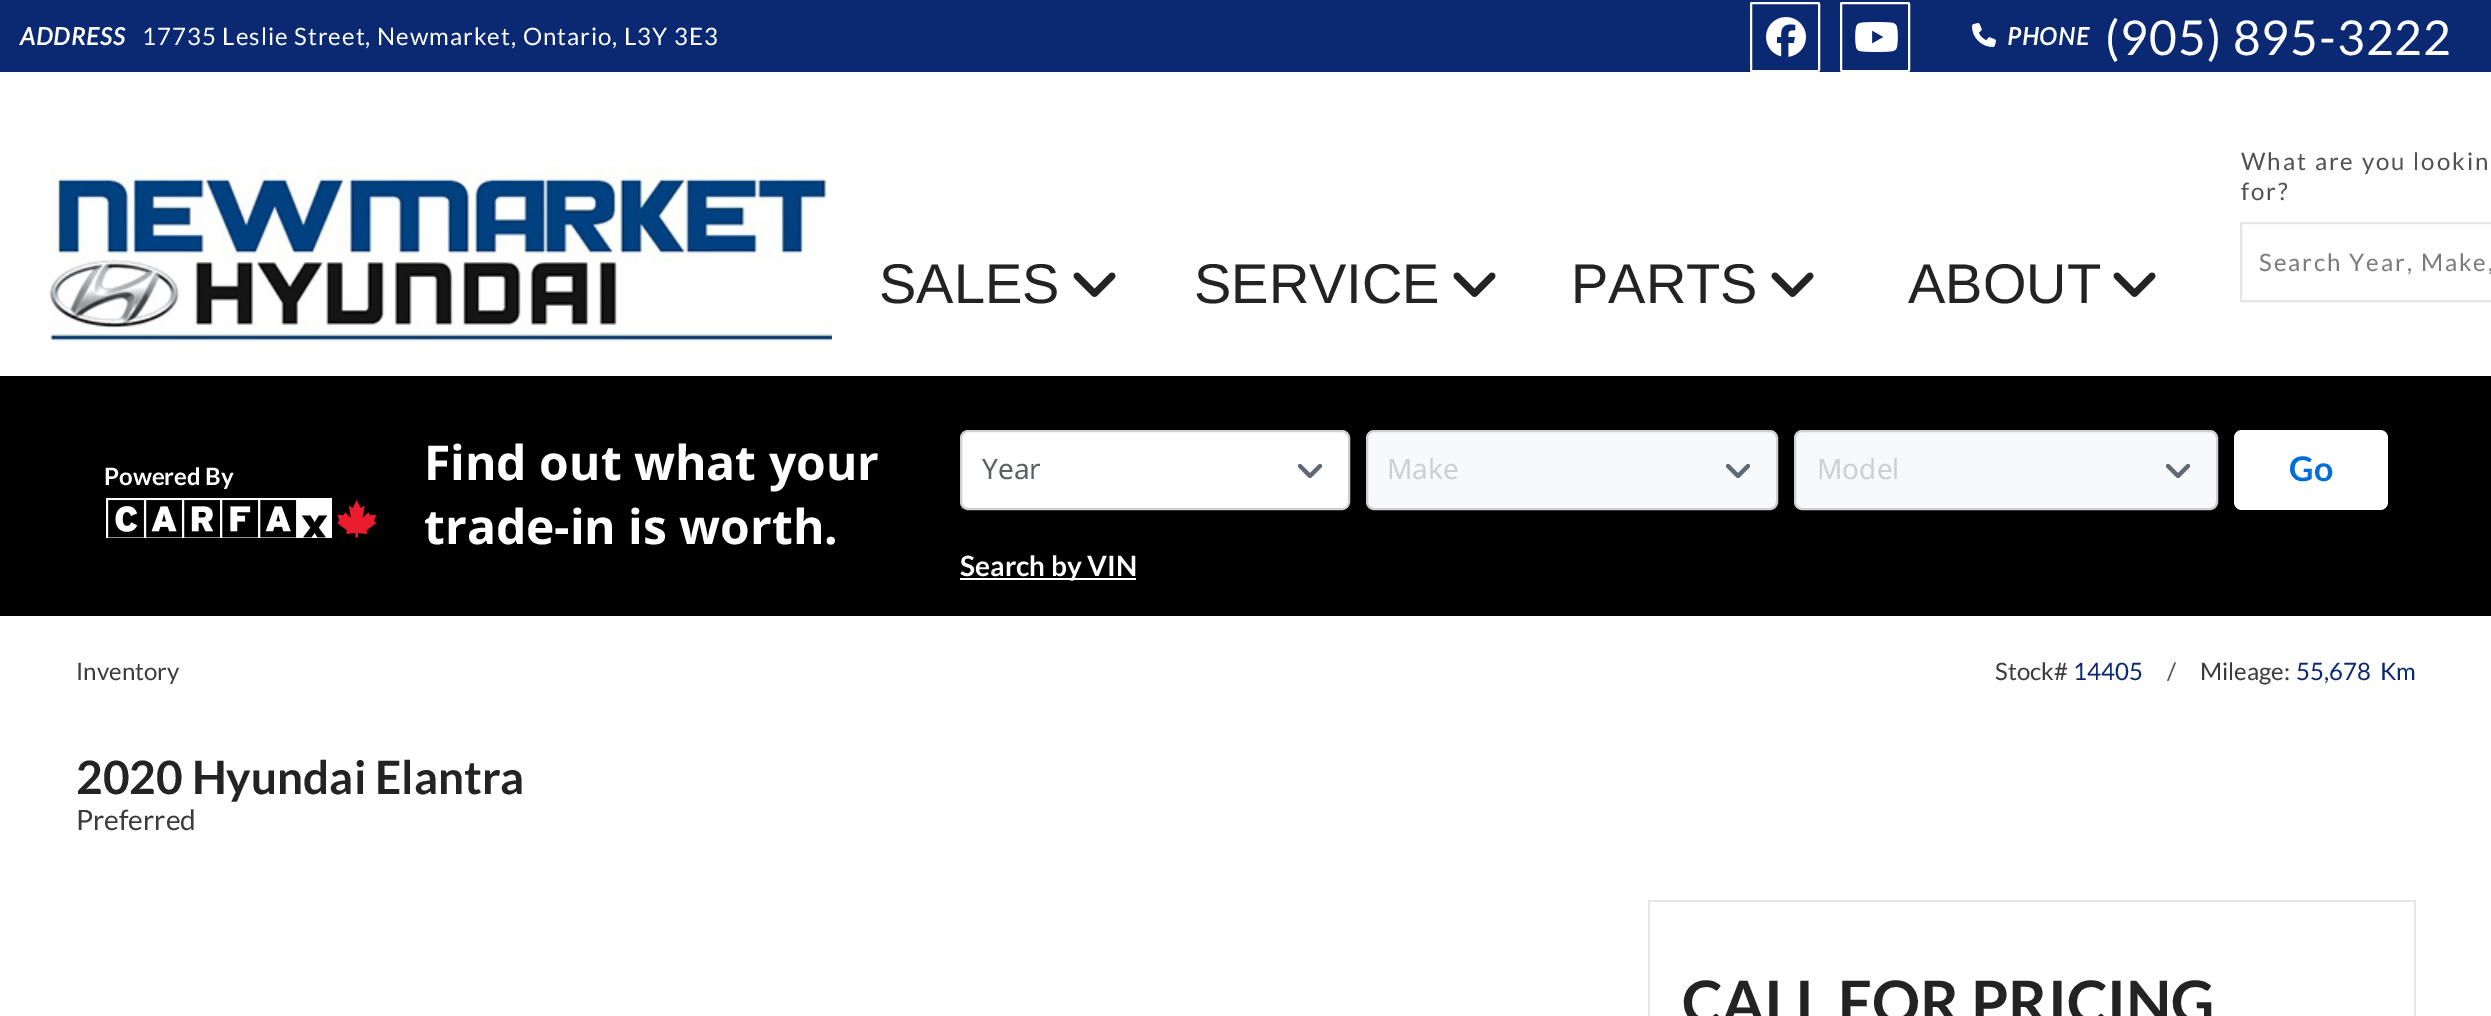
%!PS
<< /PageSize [2491 1016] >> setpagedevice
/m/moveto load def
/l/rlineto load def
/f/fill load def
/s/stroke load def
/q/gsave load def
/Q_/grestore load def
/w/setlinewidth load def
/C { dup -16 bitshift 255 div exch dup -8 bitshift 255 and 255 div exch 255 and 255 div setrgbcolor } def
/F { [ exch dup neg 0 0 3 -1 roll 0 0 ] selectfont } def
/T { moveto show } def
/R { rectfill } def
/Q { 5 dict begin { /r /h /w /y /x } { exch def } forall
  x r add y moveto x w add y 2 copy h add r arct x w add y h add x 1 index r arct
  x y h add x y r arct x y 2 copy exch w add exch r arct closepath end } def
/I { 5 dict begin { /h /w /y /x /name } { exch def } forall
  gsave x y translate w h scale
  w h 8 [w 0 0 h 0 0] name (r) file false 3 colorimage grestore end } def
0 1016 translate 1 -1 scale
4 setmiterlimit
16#FFFFFF C
0 0 2491 1016 R
16#0A2972 C
0 0 2491 72 R
/Lato-BoldItalic 24 F
16#FFFFFF C
20 45 m 1 0 (ADDRESS) ashow
/Lato-Regular 24 F
142 45 m 1 0 (17735 Leslie Street, Newmarket, Ontario, L3Y 3E3) ashow
2 w
1751 3 68 68 1 Q s
(1.rgb) 1766 17 40 40 I
1841 3 68 68 1 Q s
(2.rgb) 1855 22 43 30 I
(3.rgb) 1972 23 24 24 I
/Lato-BoldItalic 24 F
2007 45 m 1 0 (PHONE) ashow
/Lato-Regular 48 F
2105 55 m 1 0 (\(905\) 895-3222) ashow
(4.rgb) 49 166 783 178 I
/LiberationSans-Regular 56 F
16#232323 C
(SALES) 879 303 T
(5.rgb) 1073 272 43 25 I
(SERVICE) 1194 303 T
(5.rgb) 1453 272 43 25 I
(PARTS) 1571 303 T
(5.rgb) 1771 272 43 25 I
(ABOUT) 1908 303 T
(5.rgb) 2113 272 43 25 I
/Lato-Regular 24 F
16#525051 C
2241 170 m 2 0 (What are you lookin) ashow
2241 200 m 2 0 (for?) ashow
16#E6E5E5 C
2241 223 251 78 rectstroke
16#7B7B7B C
2259 271 m 2 0 (Search Year, Make,) ashow
16#000000 C
0 376 2491 240 R
/Lato-Bold 24 F
16#FFFFFF C
(Powered By) 104 485 T
(6.rgb) 106 498 270 40 I
/NotoSans-Bold 48 F
(Find out what your) 424 480 T
(trade-in is worth.) 424 544 T
961 431 388 78 7 Q q f Q_
16#CFCFD1 C
s
/NotoSans-Regular 28 F
16#5B5F66 C
(Year) 982 479 T
16#5F6875 C
4 w
1 setlinecap
1 setlinejoin
1300 466 m 10 10 l 10 -10 l s
16#F8F9FB C
1367 431 410 78 7 Q q f Q_
16#CFCFD1 C
2 w
0 setlinecap
0 setlinejoin
s
16#CFCFD0 C
(Make) 1387 479 T
16#5F6875 C
4 w
1 setlinecap
1 setlinejoin
1728 466 m 10 10 l 10 -10 l s
16#F8F9FB C
1795 431 422 78 7 Q q f Q_
16#CFCFD1 C
2 w
0 setlinecap
0 setlinejoin
s
16#CFCFD0 C
(Model) 1817 479 T
16#5F6875 C
4 w
1 setlinecap
1 setlinejoin
2168 466 m 10 10 l 10 -10 l s
16#FFFFFF C
2234 430 154 80 8 Q f
/Lato-Bold 34 F
16#016DDA C
(Go) 2289 481 T
16#FFFFFF C
960 578 176 2 R
/Lato-Bold 28 F
(Search by VIN) 960 576 T
/Lato-Regular 24 F
16#3D3C3C C
(Inventory) 76 680 T
(Stock#) 1995 680 T
16#0A2972 C
(14405) 2073 680 T
16#525051 C
(/) 2167 680 T
16#3D3C3C C
(Mileage:) 2200 680 T
16#0A2972 C
(55,678) 2296 680 T
(Km) 2380 680 T
/Lato-Bold 46 F
16#232323 C
(2020 Hyundai Elantra) 76 794 T
/Lato-Regular 28 F
16#3D3C3C C
(Preferred) 76 830 T
16#E6E5E5 C
1648 900 768 2 R
2414 900 2 116 R
1648 900 2 116 R
/Lato-Bold 60 F
16#232323 C
(CALL FOR PRICING) 1682 1024 T
showpage
